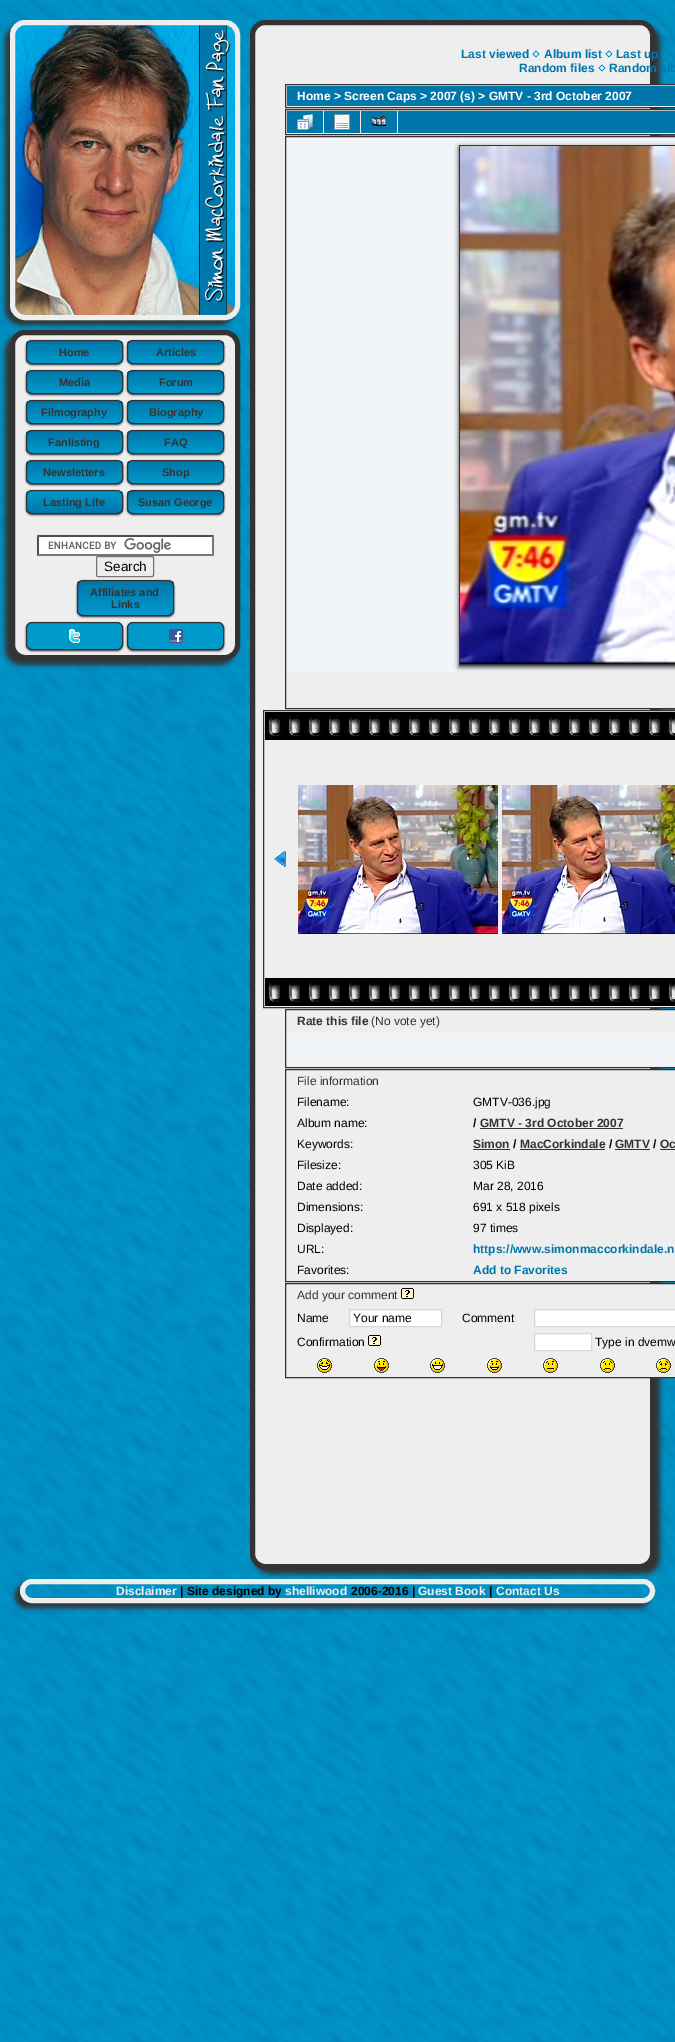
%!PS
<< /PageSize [675 2042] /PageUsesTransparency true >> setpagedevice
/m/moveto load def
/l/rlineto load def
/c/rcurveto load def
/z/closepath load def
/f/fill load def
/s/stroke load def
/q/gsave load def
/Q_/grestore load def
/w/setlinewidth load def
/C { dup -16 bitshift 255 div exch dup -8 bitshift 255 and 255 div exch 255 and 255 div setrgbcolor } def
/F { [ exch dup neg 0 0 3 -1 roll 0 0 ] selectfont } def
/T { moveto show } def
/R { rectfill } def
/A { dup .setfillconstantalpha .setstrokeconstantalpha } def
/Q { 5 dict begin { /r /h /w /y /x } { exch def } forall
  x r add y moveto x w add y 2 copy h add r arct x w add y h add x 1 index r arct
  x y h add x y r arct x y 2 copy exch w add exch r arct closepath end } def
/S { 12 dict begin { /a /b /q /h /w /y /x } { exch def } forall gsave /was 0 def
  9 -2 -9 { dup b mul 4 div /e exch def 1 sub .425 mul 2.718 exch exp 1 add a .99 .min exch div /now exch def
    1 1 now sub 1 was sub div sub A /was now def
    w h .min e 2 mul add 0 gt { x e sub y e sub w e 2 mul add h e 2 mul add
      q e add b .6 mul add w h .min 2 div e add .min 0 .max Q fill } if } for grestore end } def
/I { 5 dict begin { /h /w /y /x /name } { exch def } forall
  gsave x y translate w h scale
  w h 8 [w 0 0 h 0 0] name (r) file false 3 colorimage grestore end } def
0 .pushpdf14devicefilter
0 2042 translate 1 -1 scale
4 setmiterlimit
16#FFFFFF C
0 0 675 2042 R
(1.rgb) 0 0 675 2042 I
16#333333 C
5 25 230 300 15 2.5 1 S
(2.rgb) 15 20 225 295 I
16#EEEEEE C
5 w
12.5 22.5 225 295 12.5 Q s
16#333333 C
5 335 230 330 15 2.5 1 S
16#EEEEEE C
12.5 332.5 225 325 12.5 Q q f Q_
16#333333 C
s
26 341 97 24 6 1 1 S
q
26 340 97 24 6 Q clip newpath
q 26 341 m 97 0 l 0 22 l -97 0 l z clip newpath
<< /ShadingType 2 /ColorSpace /DeviceRGB /Coords [75 341 75 363] /Extend [true true] /Function << /FunctionType 2 /Domain [0 1] /C0 [0 .467 .667] /C1 [0 .6 .8] /N 1 >> >> shfill Q_
Q_
1 w
26.5 340.5 96 23 5.5 Q s
/LiberationSans-Bold 11 F
(Home) 59 356 T
127 341 97 24 6 1 1 S
q
127 340 97 24 6 Q clip newpath
q 127 341 m 97 0 l 0 22 l -97 0 l z clip newpath
<< /ShadingType 2 /ColorSpace /DeviceRGB /Coords [176 341 176 363] /Extend [true true] /Function << /FunctionType 2 /Domain [0 1] /C0 [0 .467 .667] /C1 [0 .6 .8] /N 1 >> >> shfill Q_
Q_
127.5 340.5 96 23 5.5 Q s
(Articles) 156 356 T
26 371 97 24 6 1 1 S
q
26 370 97 24 6 Q clip newpath
q 26 371 m 97 0 l 0 22 l -97 0 l z clip newpath
<< /ShadingType 2 /ColorSpace /DeviceRGB /Coords [75 371 75 393] /Extend [true true] /Function << /FunctionType 2 /Domain [0 1] /C0 [0 .467 .667] /C1 [0 .6 .8] /N 1 >> >> shfill Q_
Q_
26.5 370.5 96 23 5.5 Q s
(Media) 59 386 T
127 371 97 24 6 1 1 S
q
127 370 97 24 6 Q clip newpath
q 127 371 m 97 0 l 0 22 l -97 0 l z clip newpath
<< /ShadingType 2 /ColorSpace /DeviceRGB /Coords [176 371 176 393] /Extend [true true] /Function << /FunctionType 2 /Domain [0 1] /C0 [0 .467 .667] /C1 [0 .6 .8] /N 1 >> >> shfill Q_
Q_
127.5 370.5 96 23 5.5 Q s
(Forum) 159 386 T
26 401 97 24 6 1 1 S
q
26 400 97 24 6 Q clip newpath
q 26 401 m 97 0 l 0 22 l -97 0 l z clip newpath
<< /ShadingType 2 /ColorSpace /DeviceRGB /Coords [75 401 75 423] /Extend [true true] /Function << /FunctionType 2 /Domain [0 1] /C0 [0 .467 .667] /C1 [0 .6 .8] /N 1 >> >> shfill Q_
Q_
26.5 400.5 96 23 5.5 Q s
(Filmography) 41 416 T
127 401 97 24 6 1 1 S
q
127 400 97 24 6 Q clip newpath
q 127 401 m 97 0 l 0 22 l -97 0 l z clip newpath
<< /ShadingType 2 /ColorSpace /DeviceRGB /Coords [176 401 176 423] /Extend [true true] /Function << /FunctionType 2 /Domain [0 1] /C0 [0 .467 .667] /C1 [0 .6 .8] /N 1 >> >> shfill Q_
Q_
127.5 400.5 96 23 5.5 Q s
(Biography) 149 416 T
26 431 97 24 6 1 1 S
q
26 430 97 24 6 Q clip newpath
q 26 431 m 97 0 l 0 22 l -97 0 l z clip newpath
<< /ShadingType 2 /ColorSpace /DeviceRGB /Coords [75 431 75 453] /Extend [true true] /Function << /FunctionType 2 /Domain [0 1] /C0 [0 .467 .667] /C1 [0 .6 .8] /N 1 >> >> shfill Q_
Q_
26.5 430.5 96 23 5.5 Q s
(Fanlisting) 48 446 T
127 431 97 24 6 1 1 S
q
127 430 97 24 6 Q clip newpath
q 127 431 m 97 0 l 0 22 l -97 0 l z clip newpath
<< /ShadingType 2 /ColorSpace /DeviceRGB /Coords [176 431 176 453] /Extend [true true] /Function << /FunctionType 2 /Domain [0 1] /C0 [0 .467 .667] /C1 [0 .6 .8] /N 1 >> >> shfill Q_
Q_
127.5 430.5 96 23 5.5 Q s
(FAQ) 164 446 T
26 461 97 24 6 1 1 S
q
26 460 97 24 6 Q clip newpath
q 26 461 m 97 0 l 0 22 l -97 0 l z clip newpath
<< /ShadingType 2 /ColorSpace /DeviceRGB /Coords [75 461 75 483] /Extend [true true] /Function << /FunctionType 2 /Domain [0 1] /C0 [0 .467 .667] /C1 [0 .6 .8] /N 1 >> >> shfill Q_
Q_
26.5 460.5 96 23 5.5 Q s
(Newsletters) 43 476 T
127 461 97 24 6 1 1 S
q
127 460 97 24 6 Q clip newpath
q 127 461 m 97 0 l 0 22 l -97 0 l z clip newpath
<< /ShadingType 2 /ColorSpace /DeviceRGB /Coords [176 461 176 483] /Extend [true true] /Function << /FunctionType 2 /Domain [0 1] /C0 [0 .467 .667] /C1 [0 .6 .8] /N 1 >> >> shfill Q_
Q_
127.5 460.5 96 23 5.5 Q s
(Shop) 162 476 T
26 491 97 24 6 1 1 S
q
26 490 97 24 6 Q clip newpath
q 26 491 m 97 0 l 0 22 l -97 0 l z clip newpath
<< /ShadingType 2 /ColorSpace /DeviceRGB /Coords [75 491 75 513] /Extend [true true] /Function << /FunctionType 2 /Domain [0 1] /C0 [0 .6 .8] /C1 [0 .467 .667] /N 1 >> >> shfill Q_
Q_
26.5 490.5 96 23 5.5 Q s
(Lasting Life) 43 506 T
127 491 97 24 6 1 1 S
q
127 490 97 24 6 Q clip newpath
q 127 491 m 97 0 l 0 22 l -97 0 l z clip newpath
<< /ShadingType 2 /ColorSpace /DeviceRGB /Coords [176 491 176 513] /Extend [true true] /Function << /FunctionType 2 /Domain [0 1] /C0 [0 .467 .667] /C1 [0 .6 .8] /N 1 >> >> shfill Q_
Q_
127.5 490.5 96 23 5.5 Q s
(Susan George) 138 506 T
16#FFFFFF C
37 535 177 21 R
(3.rgb) 48 538 123 15 I
16#4F4F4F C
37 535 m 177 0 l -2 2 l -173 0 l z f
16#767676 C
214 535 m 0 21 l -2 -2 l 0 -17 l z f
214 556 m -177 0 l 2 -2 l 173 0 l z f
16#4F4F4F C
37 556 m 0 -21 l 2 2 l 0 17 l z f
16#767676 C
96.5 556.5 57 20 1.5 Q s
/LiberationSans-Regular 13.5 F
16#000000 C
(Search) 104 571 T
16#333333 C
77 581 97 36 6 1 1 S
q
77 580 97 36 6 Q clip newpath
q 77 581 m 97 0 l 0 34 l -97 0 l z clip newpath
<< /ShadingType 2 /ColorSpace /DeviceRGB /Coords [126 581 126 615] /Extend [true true] /Function << /FunctionType 2 /Domain [0 1] /C0 [0 .467 .667] /C1 [0 .6 .8] /N 1 >> >> shfill Q_
Q_
77.5 580.5 96 35 5.5 Q s
/LiberationSans-Bold 11 F
(Affiliates and) 90 596 T
(Links) 111 608 T
26 623 97 28 6 1 1 S
16#0099CC C
26.5 622.5 96 27 5.5 Q q f Q_
16#333333 C
s
(4.rgb) 69 629 11 14 I
127 623 97 28 6 1 1 S
16#0099CC C
127.5 622.5 96 27 5.5 Q q f Q_
16#333333 C
s
(5.rgb) 169 629 14 14 I
255 25 405 1549 15 2.5 1 S
16#EEEEEE C
252.5 22.5 400 1544 12.5 Q q f Q_
16#333333 C
5 w
s
/LiberationSans-Bold 12 F
16#0077AA C
(Last viewed) 461 58 T
(6.rgb) 532 50 8 8 I
(Album list) 544 58 T
(6.rgb) 605 50 8 8 I
(Last up) 616 58 T
(Random files) 519 72 T
(6.rgb) 598 64 8 8 I
(Random alb) 609 72 T
16#EEEEEE C
650 85 25 22 R
16#333333 C
1 w
285.5 84.5 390 23 rectstroke
16#0077AA C
287 86 388 20 R
16#FFFFFF C
(Home > Screen Caps > 2007 \(s\) > GMTV - 3rd October 2007) 297 100 T
16#EEEEEE C
650 110 25 24 R
16#333333 C
285.5 109.5 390 25 rectstroke
16#0077AA C
287 111 36 22 R
(7.rgb) 297 114 16 16 I
324 111 36 22 R
(8.rgb) 334 114 16 16 I
361 111 36 22 R
(9.rgb) 371 115 16 12 I
398 111 277 22 R
16#EEEEEE C
650 137 25 571 R
16#333333 C
285.5 136.5 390 572 rectstroke
16#F2F5F7 C
287 138 388 534 R
16#333333 C
459 147 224 520 0 2.5 1 S
459.5 145.5 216 519 rectstroke
(10.rgb) 460 146 215 518 I
16#EEEEEE C
650 711 25 296 R
16#333333 C
263.5 710.5 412 297 rectstroke
(11.rgb) 265 712 410 28 I
(12.rgb) 274 851 12 16 I
(13.rgb) 298 785 200 149 I
(14.rgb) 502 785 173 149 I
(11.rgb) 265 978 410 28 I
16#EEEEEE C
650 1010 25 57 R
16#333333 C
285.5 1009.5 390 58 rectstroke
(Rate this file) 297 1025 T
/LiberationSans-Regular 12 F
(\(No vote yet\)) 371 1025 T
16#F2F5F7 C
287 1032 388 34 R
16#EEEEEE C
650 1070 25 211 R
16#333333 C
285.5 1069.5 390 212 rectstroke
(File information) 297 1085 T
16#000000 C
(Filename:) 297 1106 T
(GMTV-036.jpg) 473 1106 T
(Album name:) 297 1127 T
/LiberationSans-Bold 12 F
(/) 473 1127 T
16#333333 C
(GMTV - 3rd October 2007) 480 1127 T
480 1128 143 1 R
/LiberationSans-Regular 12 F
16#000000 C
(Keywords:) 297 1148 T
/LiberationSans-Bold 12 F
16#333333 C
(Simon) 473 1148 T
473 1149 37 1 R
16#000000 C
(/) 513 1148 T
16#333333 C
(MacCorkindale) 520 1148 T
520 1149 85 1 R
16#000000 C
(/) 609 1148 T
16#333333 C
(GMTV) 615 1148 T
615 1149 35 1 R
16#000000 C
(/) 653 1148 T
16#333333 C
(Oc) 660 1148 T
660 1149 15 1 R
/LiberationSans-Regular 12 F
16#000000 C
(Filesize:) 297 1169 T
(305 KiB) 473 1169 T
(Date added:) 297 1190 T
(Mar 28, 2016) 473 1190 T
(Dimensions:) 297 1211 T
(691 x 518 pixels) 473 1211 T
(Displayed:) 297 1232 T
(97 times) 473 1232 T
(URL:) 297 1253 T
/LiberationSans-Bold 12 F
16#0077AA C
(https://www.simonmaccorkindale.n) 473 1253 T
/LiberationSans-Regular 12 F
16#000000 C
(Favorites:) 297 1274 T
/LiberationSans-Bold 12 F
16#0077AA C
(Add to Favorites) 473 1274 T
16#EEEEEE C
650 1284 25 93 R
16#333333 C
285.5 1283.5 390 94 rectstroke
/LiberationSans-Regular 12 F
(Add your comment) 297 1299 T
(15.rgb) 401 1288 13 11 I
16#000000 C
(Name) 297 1322 T
16#FFFFFF C
349.5 1309.5 m 92 0 l 0 17 l -92 0 l z q f Q_
16#D1D7DC C
s
16#000000 C
(Your name) 353 1322 T
(Comment) 462 1322 T
16#FFFFFF C
534.5 1309.5 m 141 0 l 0 17 l -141 0 l z q f Q_
16#D1D7DC C
s
16#000000 C
(Confirmation) 297 1346 T
(15.rgb) 368 1335 13 11 I
16#FFFFFF C
534.5 1333.5 m 57 0 l 0 17 l -57 0 l z q f Q_
16#D1D7DC C
s
16#000000 C
(Type in dvemw) 595 1346 T
(16.rgb) 317 1358 15 15 I
(17.rgb) 374 1358 15 15 I
(18.rgb) 430 1358 15 15 I
(19.rgb) 487 1358 15 15 I
(20.rgb) 543 1358 15 15 I
(21.rgb) 600 1358 15 15 I
(22.rgb) 656 1358 15 15 I
q
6 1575 m 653 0 l 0 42 l -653 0 l z 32 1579 m 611 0 l 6.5 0 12 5.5 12 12 c 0 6.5 -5.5 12 -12 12 c -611 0 l -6.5 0 -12 -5.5 -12 -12 c 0 -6.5 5.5 -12 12 -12 c z eoclip newpath
16#333333 C
15 1584 635 24 12 2.5 1 S
Q_
16#EEEEEE C
5 w
22.5 1581.5 630 19 9.5 Q s
/LiberationSans-Bold 12 F
(Disclaimer) 116 1595 T
16#000000 C
(| Site designed by) 180 1595 T
16#EEEEEE C
(shelliwood) 285 1595 T
16#000000 C
(2006-2016 |) 351 1595 T
16#EEEEEE C
(Guest Book) 418 1595 T
16#000000 C
(|) 489 1595 T
16#EEEEEE C
(Contact Us) 496 1595 T
.poppdf14devicefilter showpage
